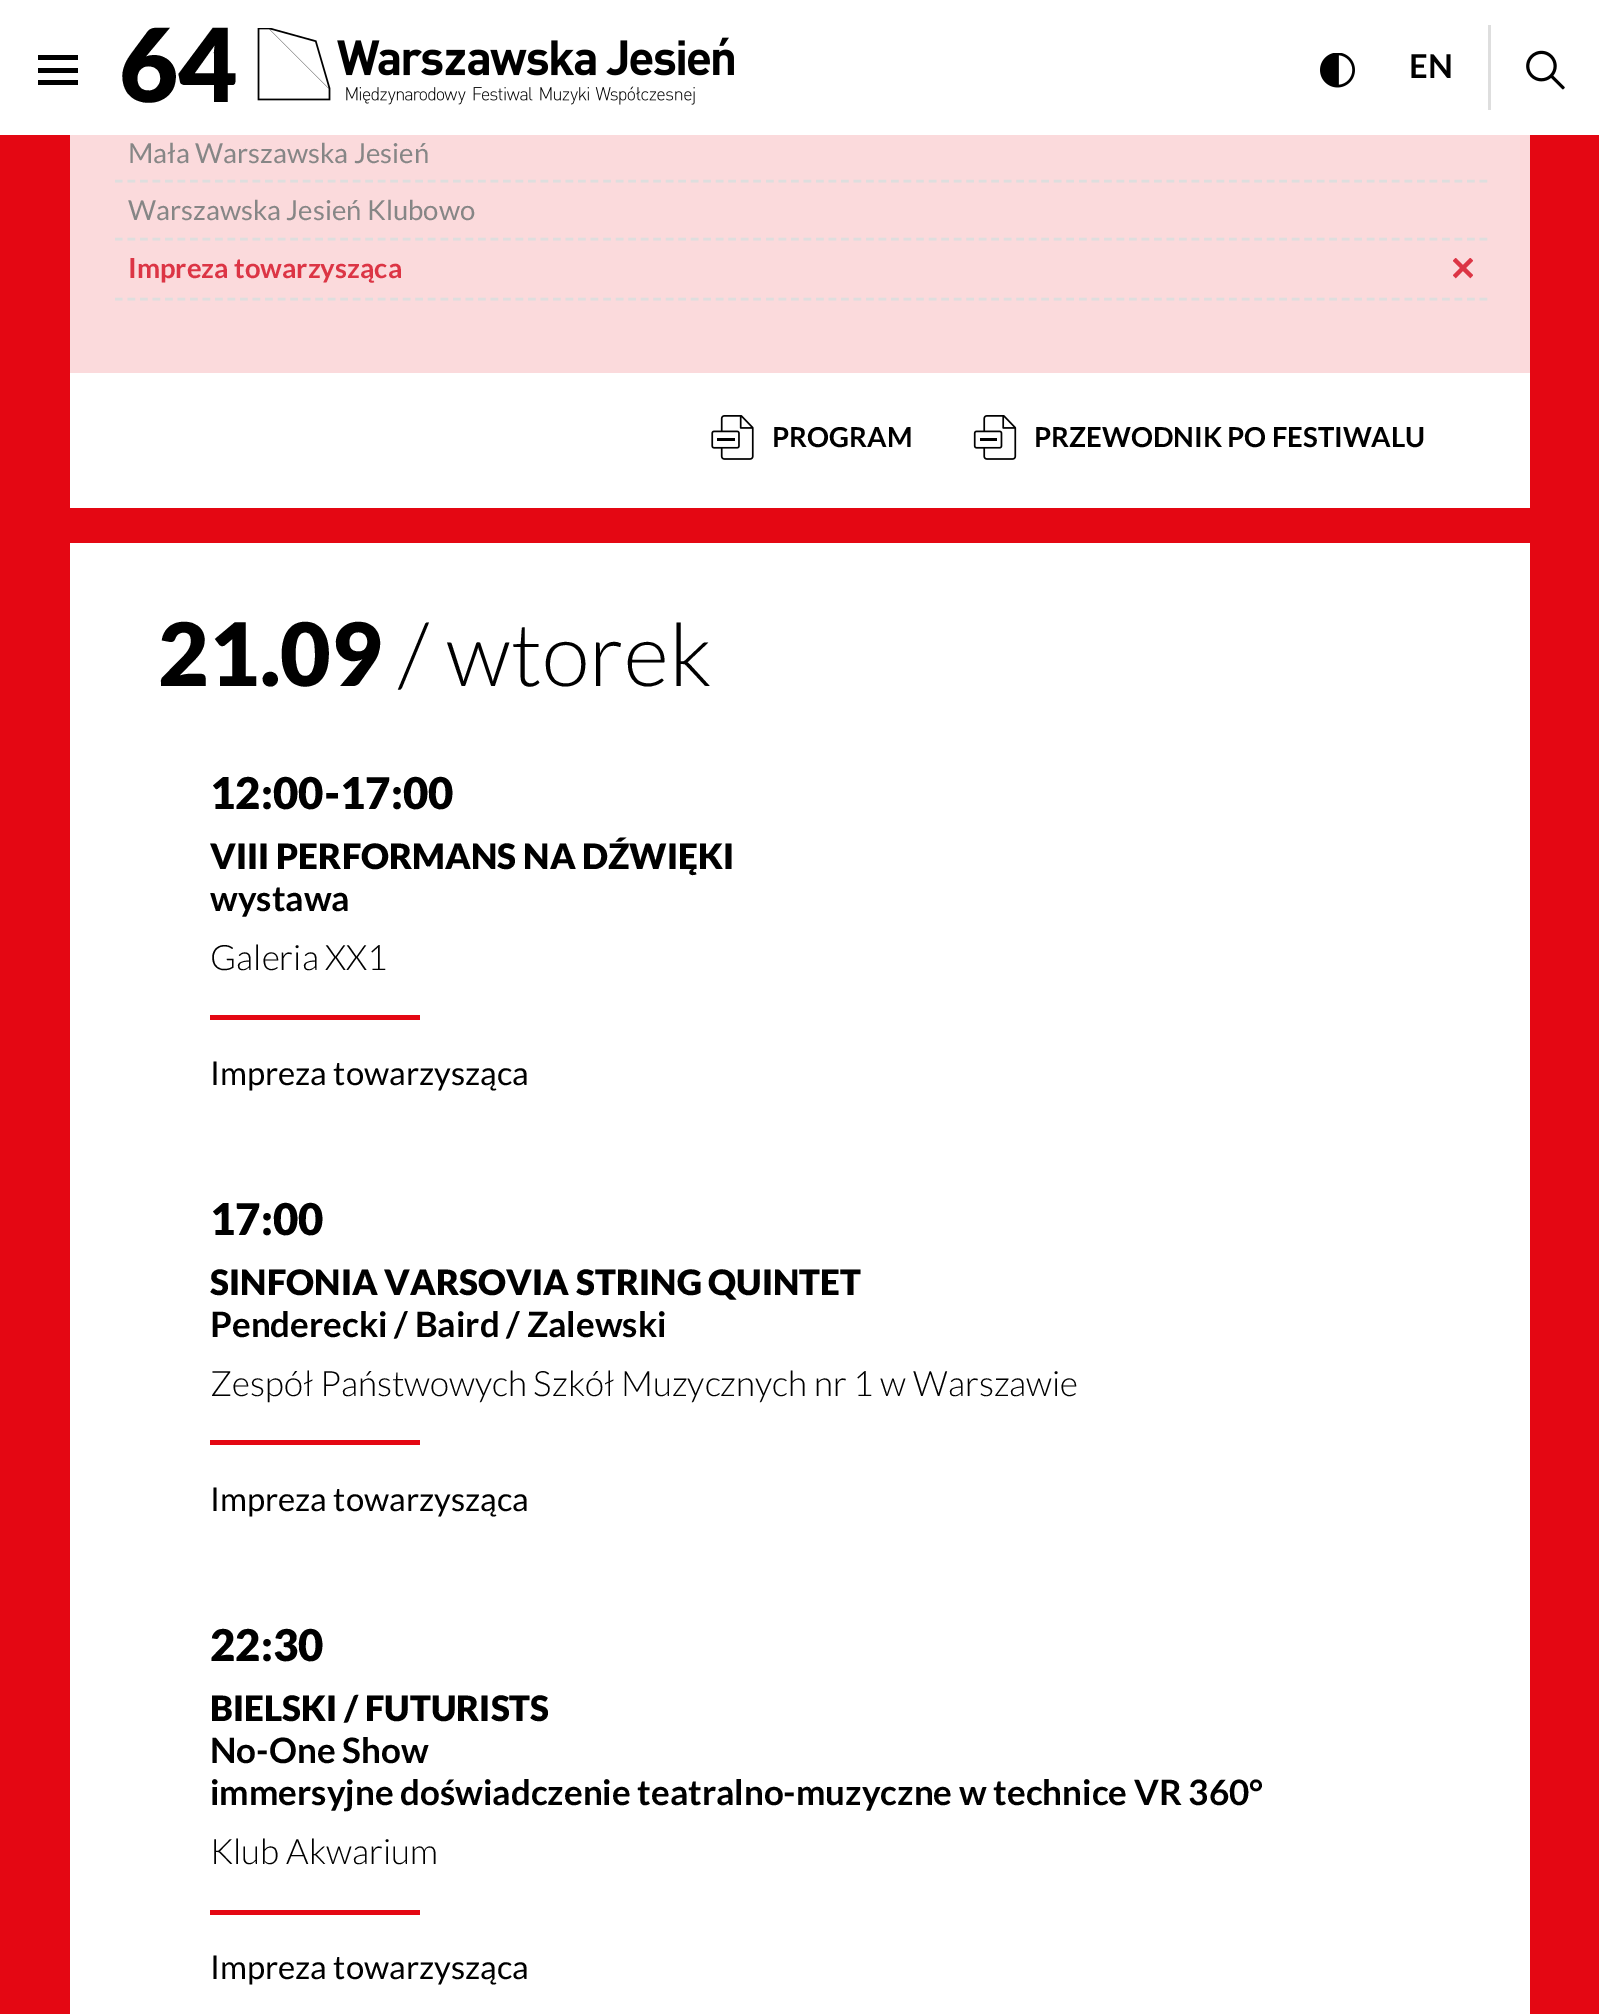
%!PS
<< /PageSize [1599 2014] >> setpagedevice
/m/moveto load def
/l/rlineto load def
/s/stroke load def
/w/setlinewidth load def
/C { dup -16 bitshift 255 div exch dup -8 bitshift 255 and 255 div exch 255 and 255 div setrgbcolor } def
/F { [ exch dup neg 0 0 3 -1 roll 0 0 ] selectfont } def
/T { moveto show } def
/R { rectfill } def
/I { 5 dict begin { /h /w /y /x /name } { exch def } forall
  gsave x y translate w h scale
  w h 8 [w 0 0 h 0 0] name (r) file false 3 colorimage grestore end } def
0 2014 translate 1 -1 scale
4 setmiterlimit
16#E40713 C
0 0 1599 2014 R
16#FFFFFF C
0 0 1599 135 R
16#000000 C
38 55 40 5 R
38 68 40 5 R
38 80 40 5 R
/Lato-Black 102 F
(64) 119 102 T
(1.rgb) 257 28 477 77 I
(2.rgb) 1320 53 35 35 I
/Lato-Bold 32.75 F
(EN) 1409 78 T
16#DEDEDE C
1488 25 3 85 R
(3.rgb) 1526 50 39 40 I
16#FBDADC C
70 135 1460 238 R
16#DEDEDE C
2.5 w
[7.5 5.02] 0 setdash
115 181 m 1372.5 0 l s
/Lato-Regular 27.5 F
16#868686 C
(Mała Warszawska Jesień) 128 163 T
16#DEDEDE C
115 239 m 1372.5 0 l s
16#868686 C
(Warszawska Jesień Klubowo) 128 220 T
16#DEDEDE C
115 299 m 1372.5 0 l s
/Lato-Bold 27.5 F
16#DC3545 C
(Impreza towarzysząca) 128 278 T
(4.rgb) 1453 258 20 21 I
16#FFFFFF C
70 373 1460 135 R
(5.rgb) 711 415 43 45 I
16#000000 C
(PROGRAM) 772 447 T
(6.rgb) 973 415 44 45 I
(PRZEWODNIK PO FESTIWALU) 1034 447 T
16#FFFFFF C
70 543 1460 1471 R
/Lato-Black 87.5 F
16#000000 C
(21.09) 158 686 T
/Lato-Light 87.5 F
(/ wtorek) 398 686 T
/Lato-Black 43.75 F
(12:00-17:00) 210 809 T
/Lato-Black 35 F
(VIII PERFORMANS NA DŹWIĘKI) 210 869 T
/Lato-Bold 35 F
(wystawa) 210 911 T
/Lato-Light 35 F
(Galeria XX1) 210 970 T
16#E40713 C
210 1015 210 5 R
/Lato-Regular 32.75 F
16#000000 C
(Impreza towarzysząca) 210 1085 T
/Lato-Black 43.75 F
(17:00) 210 1235 T
/Lato-Black 35 F
(SINFONIA VARSOVIA STRING QUINTET) 210 1295 T
/Lato-Bold 35 F
(Penderecki / Baird / Zalewski) 210 1337 T
/Lato-Light 35 F
(Zespół Państwowych Szkół Muzycznych nr 1 w Warszawie) 210 1396 T
16#E40713 C
210 1440 210 5 R
/Lato-Regular 32.75 F
16#000000 C
(Impreza towarzysząca) 210 1511 T
/Lato-Black 43.75 F
(22:30) 210 1661 T
/Lato-Black 35 F
(BIELSKI / FUTURISTS) 210 1721 T
/Lato-Bold 35 F
(No-One Show) 210 1763 T
(immersyjne doświadczenie teatralno-muzyczne w technice VR 360°) 210 1805 T
/Lato-Light 35 F
(Klub Akwarium) 210 1864 T
16#E40713 C
210 1910 210 5 R
/Lato-Regular 32.75 F
16#000000 C
(Impreza towarzysząca) 210 1979 T
showpage
